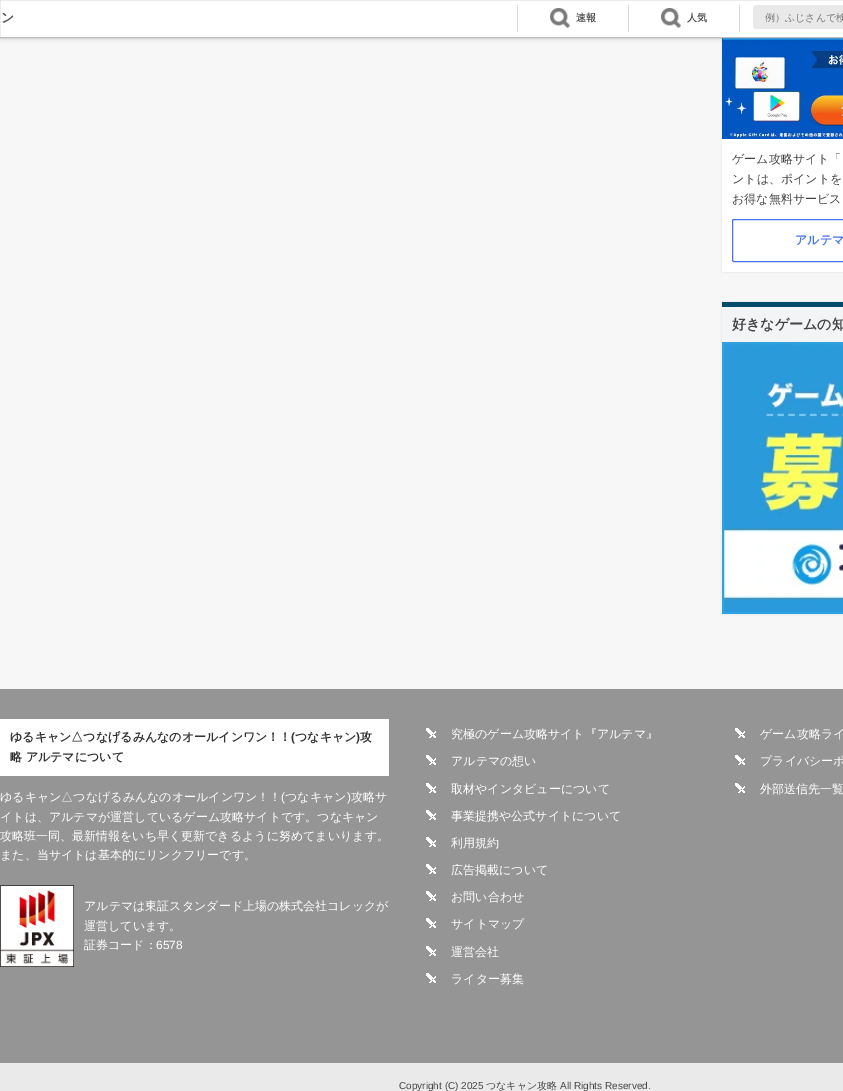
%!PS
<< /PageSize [843 1091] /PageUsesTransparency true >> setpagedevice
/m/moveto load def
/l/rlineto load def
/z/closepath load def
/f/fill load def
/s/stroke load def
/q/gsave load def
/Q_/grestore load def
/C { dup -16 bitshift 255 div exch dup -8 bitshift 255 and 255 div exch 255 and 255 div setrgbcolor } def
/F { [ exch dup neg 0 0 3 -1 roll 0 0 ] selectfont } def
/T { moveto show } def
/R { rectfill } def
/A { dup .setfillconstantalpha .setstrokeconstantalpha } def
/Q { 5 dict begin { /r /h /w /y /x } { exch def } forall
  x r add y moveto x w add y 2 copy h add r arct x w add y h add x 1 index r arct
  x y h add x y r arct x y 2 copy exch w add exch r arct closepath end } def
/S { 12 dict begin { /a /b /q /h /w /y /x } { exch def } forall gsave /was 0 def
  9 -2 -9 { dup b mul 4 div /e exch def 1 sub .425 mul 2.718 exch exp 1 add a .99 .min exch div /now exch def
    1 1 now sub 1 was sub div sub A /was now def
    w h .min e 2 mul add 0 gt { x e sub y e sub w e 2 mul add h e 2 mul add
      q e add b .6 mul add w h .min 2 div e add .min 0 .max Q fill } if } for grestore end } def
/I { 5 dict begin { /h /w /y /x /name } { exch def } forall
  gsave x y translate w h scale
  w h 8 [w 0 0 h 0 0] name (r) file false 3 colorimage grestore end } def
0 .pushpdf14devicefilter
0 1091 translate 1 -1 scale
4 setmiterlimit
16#F7F7F8 C
0 0 843 1091 R
16#D2DAE0 C
722 -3 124 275 0 1 1 S
(2.rgb) 722 38 121 101 I
16#000000 C
-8 -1 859 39 0 2.5 .2 S
16#FFFFFF C
-.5 -.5 m 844 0 l 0 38 l -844 0 l z q f Q_
16#BDBDBD C
s
/WenQuanYiZenHei-Bold 13 F
16#504F4F C
(ン) 1 22 T
16#DADADA C
628 5 1 27 R
517 5 1 27 R
(1.rgb) 550 8 20 21 I
/WenQuanYiZenHei-Bold 10 F
16#504F4F C
(速報) 576 21 T
16#DADADA C
739 5 1 27 R
(1.rgb) 661 8 20 21 I
16#504F4F C
(人気) 687 21 T
16#E9E9E9 C
753 5 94 24 4 Q f
/WenQuanYiZenHei-Medium 10 F
16#757575 C
(例）ふじさんで検) 765 21 T
16#FFFFFF C
722 139 121 133 R
/WenQuanYiZenHei-Medium 12 F
16#444444 C
(ゲーム攻略サイト「) 732 163 T
(ントは、ポイントを) 732 183 T
(お得な無料サービス) 732 203 T
16#4670ED C
732.5 219.5 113 42 1.5 Q s
/WenQuanYiZenHei-Bold 12 F
(アルテマ) 795 244 T
16#D2DAE0 C
722 302 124 312 0 1 1 S
16#F2F4F6 C
722 307 121 35 R
16#014C6B C
722 302 121 5 R
/WenQuanYiZenHei-Bold 14 F
16#444444 C
(好きなゲームの知) 732 329 T
(3.rgb) 722 342 121 272 I
16#959595 C
0 689 843 374 R
16#FFFFFF C
0 719 389 57 R
/WenQuanYiZenHei-Bold 12 F
16#333333 C
(ゆるキャン△つなげるみんなのオールインワン！！) 10 741 T
/LiberationSans-Bold 12 F
(\() 291 741 T
/WenQuanYiZenHei-Bold 12 F
(つなキャン) 295 741 T
/LiberationSans-Bold 12 F
(\)) 356 741 T
/WenQuanYiZenHei-Bold 12 F
(攻) 360 741 T
(略 アルテマについて) 10 761 T
/WenQuanYiZenHei-Medium 12 F
16#FFFFFF C
(ゆるキャン△つなげるみんなのオールインワン！！) 0 801 T
/LiberationSans-Regular 12 F
(\() 281 801 T
/WenQuanYiZenHei-Medium 12 F
(つなキャン) 285 801 T
/LiberationSans-Regular 12 F
(\)) 347 801 T
/WenQuanYiZenHei-Medium 12 F
(攻略サ) 351 801 T
(イトは、アルテマが運営しているゲーム攻略サイトです。つなキャン) 0 821 T
(攻略班一同、最新情報をいち早く更新できるように努めてまいります。) 0 840 T
(また、当サイトは基本的にリンクフリーです。) 0 859 T
(4.rgb) 0 885 74 82 I
(アルテマは東証スタンダード上場の株式会社コレックが) 84 910 T
(運営しています。) 84 930 T
(証券コード：) 84 949 T
/LiberationSans-Regular 12 F
(6578) 156 949 T
(5.rgb) 426 728 10 10 I
/WenQuanYiZenHei-Medium 12 F
(究極のゲーム攻略サイト『アルテマ』) 451 738 T
(5.rgb) 426 755 10 10 I
(アルテマの想い) 451 765 T
(5.rgb) 426 783 10 10 I
(取材やインタビューについて) 451 793 T
(5.rgb) 426 810 10 10 I
(事業提携や公式サイトについて) 451 820 T
(5.rgb) 426 837 10 10 I
(利用規約) 451 847 T
(5.rgb) 426 864 10 10 I
(広告掲載について) 451 874 T
(5.rgb) 426 891 10 10 I
(お問い合わせ) 451 901 T
(5.rgb) 426 918 10 10 I
(サイトマップ) 451 928 T
(5.rgb) 426 946 10 10 I
(運営会社) 451 956 T
(5.rgb) 426 973 10 10 I
(ライター募集) 451 983 T
(5.rgb) 735 728 10 10 I
(ゲーム攻略ライ) 760 738 T
(5.rgb) 735 755 10 10 I
(プライバシーポ) 760 765 T
(5.rgb) 735 783 10 10 I
(外部送信先一覧) 760 793 T
16#EAEAEA C
0 1063 843 28 R
/LiberationSans-Regular 10 F
16#444444 C
(Copyright \(C\) 2025) 399 1089 T
/WenQuanYiZenHei-Medium 10 F
(つなキャン攻略) 486 1089 T
/LiberationSans-Regular 10 F
(All Rights Reserved.) 560 1089 T
.poppdf14devicefilter showpage
